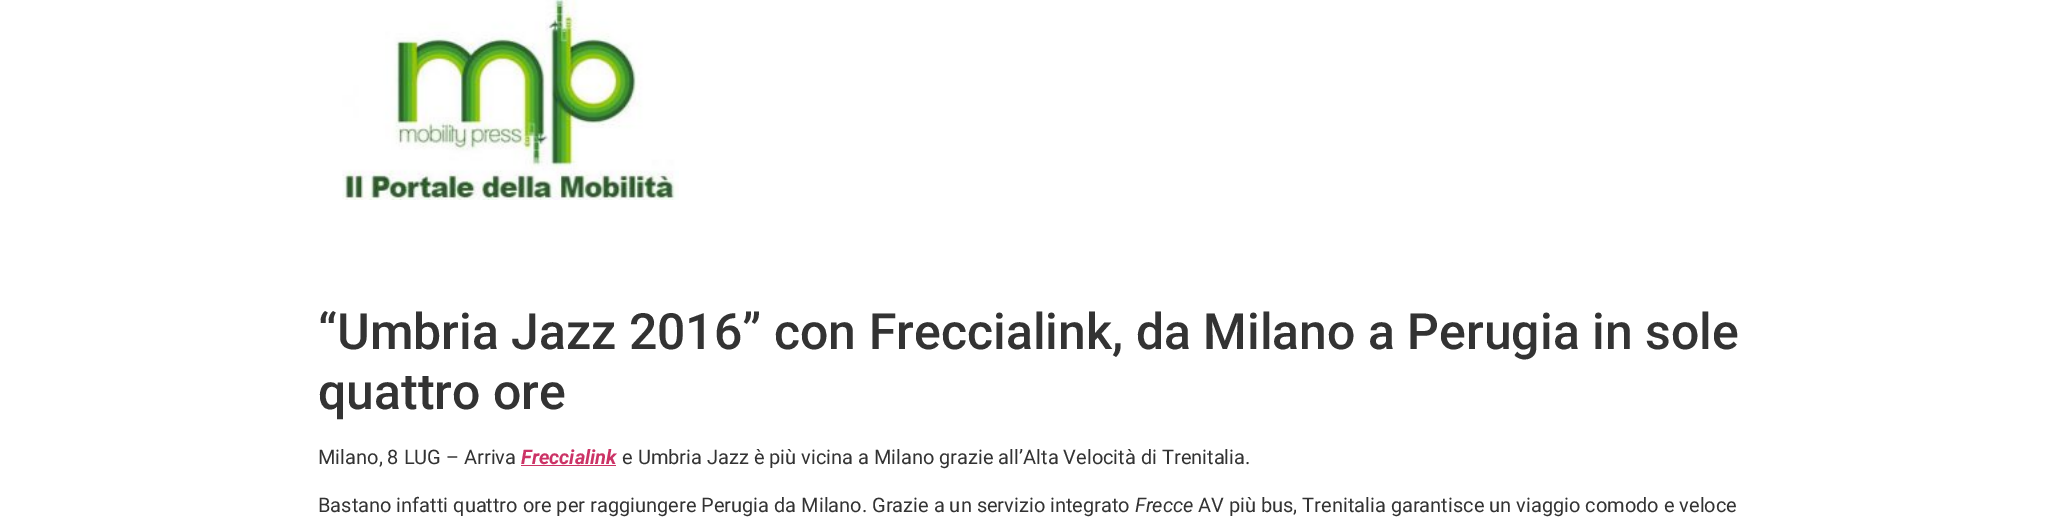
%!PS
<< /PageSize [2061 517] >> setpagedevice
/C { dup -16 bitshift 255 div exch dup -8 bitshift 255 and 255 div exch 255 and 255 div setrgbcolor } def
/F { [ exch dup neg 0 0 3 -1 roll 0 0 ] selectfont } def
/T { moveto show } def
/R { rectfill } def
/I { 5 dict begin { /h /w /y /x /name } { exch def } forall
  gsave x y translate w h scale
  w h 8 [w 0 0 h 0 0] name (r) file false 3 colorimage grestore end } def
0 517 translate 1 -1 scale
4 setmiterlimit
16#FFFFFF C
0 0 2061 517 R
(1.rgb) 342 0 337 200 I
/Roboto-Medium 50 F
16#333333 C
(“Umbria Jazz 2016” con Freccialink, da Milano a Perugia in sole) 318 349 T
(quattro ore) 318 409 T
/Roboto-Regular 20 F
(Milano, 8 LUG – Arriva) 318 464 T
/Roboto-BoldItalic 20 F
16#CC3366 C
(Freccialink) 521 464 T
521 465 95 1 R
/Roboto-Regular 20 F
16#333333 C
(e Umbria Jazz è più vicina a Milano grazie all’Alta Velocità di Trenitalia.) 622 464 T
(Bastano infatti quattro ore per raggiungere Perugia da Milano. Grazie a un servizio integrato) 318 512 T
/Roboto-Italic 20 F
(Frecce) 1135 512 T
/Roboto-Regular 20 F
(AV più bus, Trenitalia garantisce un viaggio comodo e veloce) 1198 512 T
showpage
